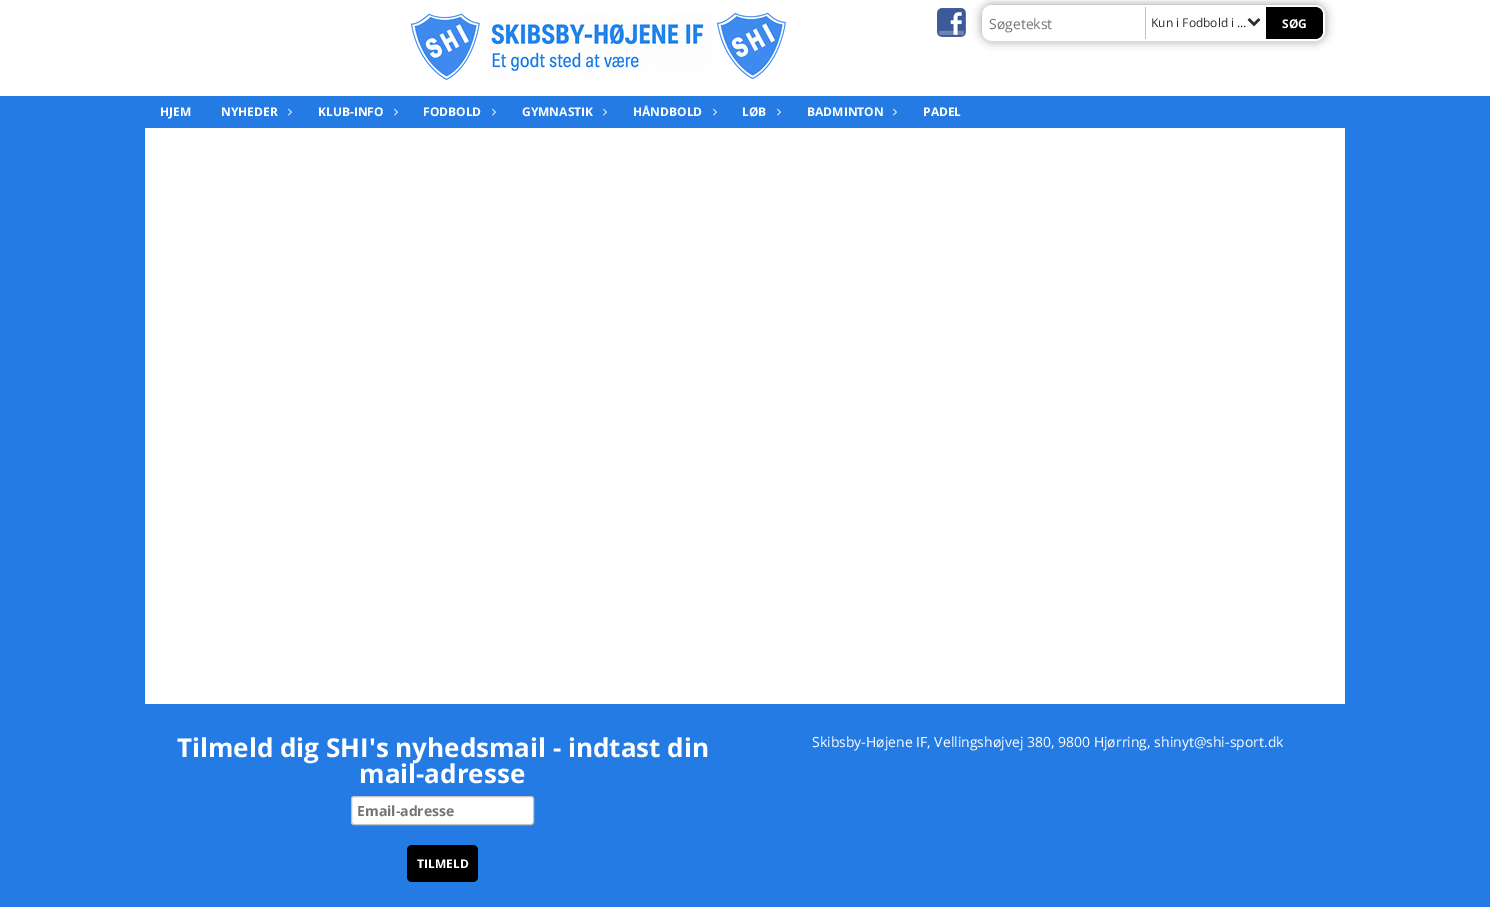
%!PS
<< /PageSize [1490 907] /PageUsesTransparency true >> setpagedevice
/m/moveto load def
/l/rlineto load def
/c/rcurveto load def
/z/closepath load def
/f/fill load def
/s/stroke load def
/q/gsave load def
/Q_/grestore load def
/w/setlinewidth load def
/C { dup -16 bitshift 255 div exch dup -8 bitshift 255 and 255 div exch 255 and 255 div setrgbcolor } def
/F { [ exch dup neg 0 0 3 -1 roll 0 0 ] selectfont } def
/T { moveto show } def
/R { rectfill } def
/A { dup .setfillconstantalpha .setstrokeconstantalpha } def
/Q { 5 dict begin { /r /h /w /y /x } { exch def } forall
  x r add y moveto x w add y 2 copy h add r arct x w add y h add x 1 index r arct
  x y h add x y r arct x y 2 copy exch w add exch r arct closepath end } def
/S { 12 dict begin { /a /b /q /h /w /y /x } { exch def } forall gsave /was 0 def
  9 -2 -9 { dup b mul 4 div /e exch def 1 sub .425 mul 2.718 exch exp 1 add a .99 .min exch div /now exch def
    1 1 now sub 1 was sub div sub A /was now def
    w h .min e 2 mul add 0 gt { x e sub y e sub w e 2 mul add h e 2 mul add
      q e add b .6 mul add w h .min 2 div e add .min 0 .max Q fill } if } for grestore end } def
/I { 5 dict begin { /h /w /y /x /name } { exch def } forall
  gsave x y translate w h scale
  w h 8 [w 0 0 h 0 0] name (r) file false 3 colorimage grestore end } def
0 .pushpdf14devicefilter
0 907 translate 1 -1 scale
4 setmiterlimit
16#247BE4 C
0 0 1490 907 R
16#FFFFFF C
0 0 1490 96 R
(1.rgb) 410 12 376 68 I
(2.rgb) 937 8 29 29 I
q
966 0 m 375 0 l 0 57 l -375 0 l z 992 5 m 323 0 l 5.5 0 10 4.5 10 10 c 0 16 l 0 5.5 -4.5 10 -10 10 c -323 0 l -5.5 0 -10 -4.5 -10 -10 c 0 -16 l 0 -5.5 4.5 -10 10 -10 c z eoclip newpath
16#303030 C
982 5 343 36 10 5 .5 S
Q_
2 w
983 6 341 34 9 Q s
/OpenSans-Regular 14 F
16#757575 C
(Søgetekst) 989 29 T
16#C2C2C2 C
1145 7 1 32 R
/OpenSans-Regular 12 F
16#2C2C2C C
(Kun i Fodbold i …) 1151 27 T
(3.rgb) 1247 18 14 9 I
16#000000 C
1266 7 m 49 0 l 4.5 0 8 3.5 8 8 c 0 16 l 0 4.5 -3.5 8 -8 8 c -49 0 l z f
/OpenSans-Bold 12 F
16#FFFFFF C
(SØG) 1282 28 T
(HJEM) 160 116 T
(NYHEDER) 221 116 T
(4.rgb) 288 108 4 8 I
(KLUB-INFO) 318 116 T
(4.rgb) 394 108 4 8 I
(FODBOLD) 423 116 T
(4.rgb) 492 108 4 8 I
(GYMNASTIK) 522 116 T
(4.rgb) 603 108 4 8 I
(HÅNDBOLD) 633 116 T
(4.rgb) 713 108 4 8 I
(LØB) 742 116 T
(4.rgb) 777 108 4 8 I
(BADMINTON) 807 116 T
(4.rgb) 893 108 4 8 I
(PADEL) 923 116 T
145 128 1200 576 R
/OpenSans-Bold 26 F
(Tilmeld dig SHI's nyhedsmail - indtast din) 177 757 T
(mail-adresse) 359 783 T
351.5 796.5 182 28 2.5 Q q f Q_
16#C2C2C2 C
1 w
s
/OpenSans-Bold 14 F
16#757575 C
(Email-adresse) 357 816 T
16#000000 C
407 845 71 37 5 Q f
/OpenSans-Bold 12 F
16#FFFFFF C
(TILMELD) 417 868 T
/OpenSans-Regular 14 F
(Skibsby-Højene IF, Vellingshøjvej 380, 9800 Hjørring, shinyt@shi-sport.dk) 812 747 T
.poppdf14devicefilter showpage
